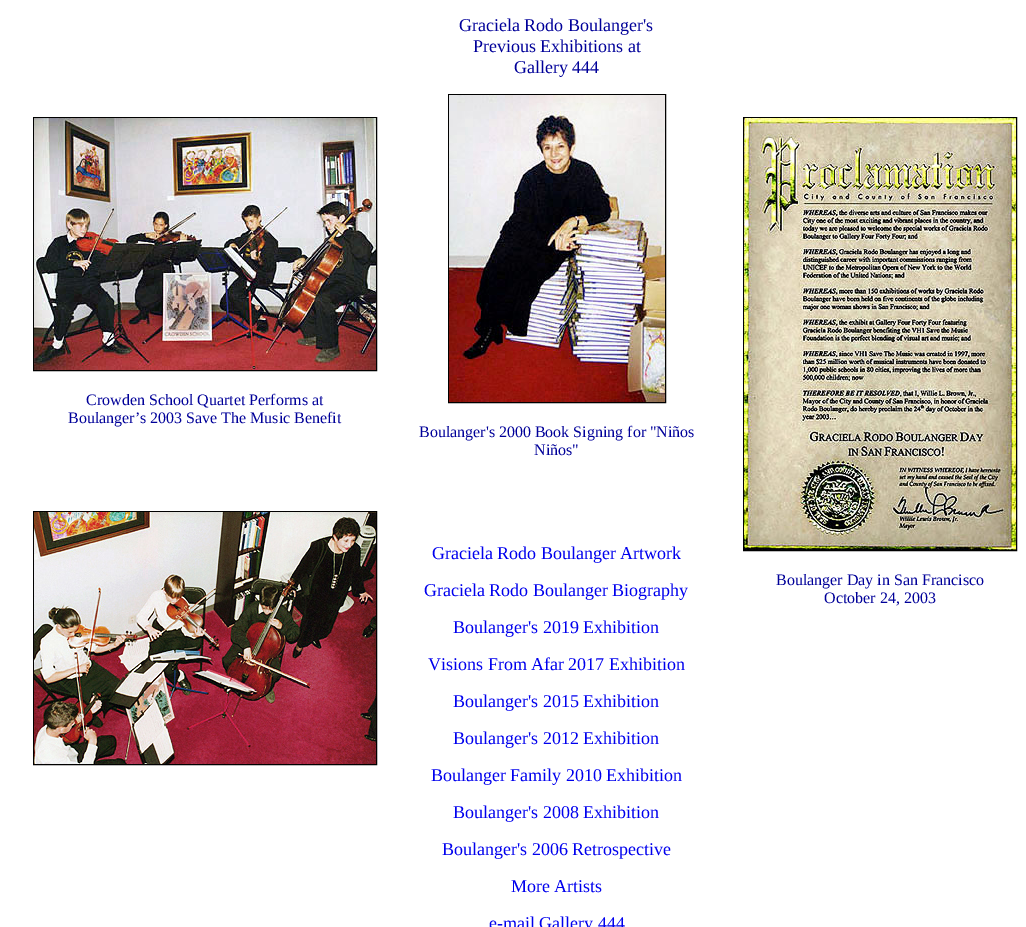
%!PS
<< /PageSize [1026 927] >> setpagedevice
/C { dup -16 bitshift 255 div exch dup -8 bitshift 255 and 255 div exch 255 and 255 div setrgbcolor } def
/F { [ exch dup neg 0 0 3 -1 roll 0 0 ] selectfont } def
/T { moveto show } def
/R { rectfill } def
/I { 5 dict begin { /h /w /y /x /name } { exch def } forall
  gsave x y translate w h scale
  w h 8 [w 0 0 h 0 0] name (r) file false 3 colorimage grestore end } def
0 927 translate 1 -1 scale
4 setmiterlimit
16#FFFFFF C
0 0 1026 927 R
16#000000 C
33.5 117.5 343 253 rectstroke
(1.rgb) 34 118 342 252 I
/LiberationSerif-Regular 16 F
16#000099 C
(Crowden School Quartet Performs at) 86 405 T
(Boulanger’s 2003 Save The Music Benefit) 68 423 T
16#000000 C
33.5 511.5 343 253 rectstroke
(2.rgb) 34 512 342 252 I
/LiberationSerif-Regular 18 F
16#000099 C
(Graciela Rodo Boulanger's) 459 31 T
(Previous Exhibitions at) 473 52 T
(Gallery 444) 514 73 T
16#000000 C
448.5 94.5 217 308 rectstroke
(3.rgb) 449 95 216 307 I
/LiberationSerif-Regular 16 F
16#000099 C
(Boulanger's 2000 Book Signing for "Niños) 419 437 T
(Niños") 534 455 T
/LiberationSerif-Regular 18 F
16#0000EE C
(Graciela Rodo Boulanger Artwork) 432 559 T
(Graciela Rodo Boulanger Biography) 424 596 T
(Boulanger's 2019 Exhibition) 453 633 T
(Visions From Afar 2017 Exhibition) 428 670 T
(Boulanger's 2015 Exhibition) 453 707 T
(Boulanger's 2012 Exhibition) 453 744 T
(Boulanger Family 2010 Exhibition) 431 781 T
(Boulanger's 2008 Exhibition) 453 818 T
(Boulanger's 2006 Retrospective) 442 855 T
(More Artists) 511 892 T
(e-mail Gallery 444) 489 929 T
16#000000 C
743.5 117.5 273 433 rectstroke
(4.rgb) 744 118 272 432 I
/LiberationSerif-Regular 16 F
16#000099 C
(Boulanger Day in San Francisco) 776 585 T
(October 24, 2003) 824 603 T
showpage
